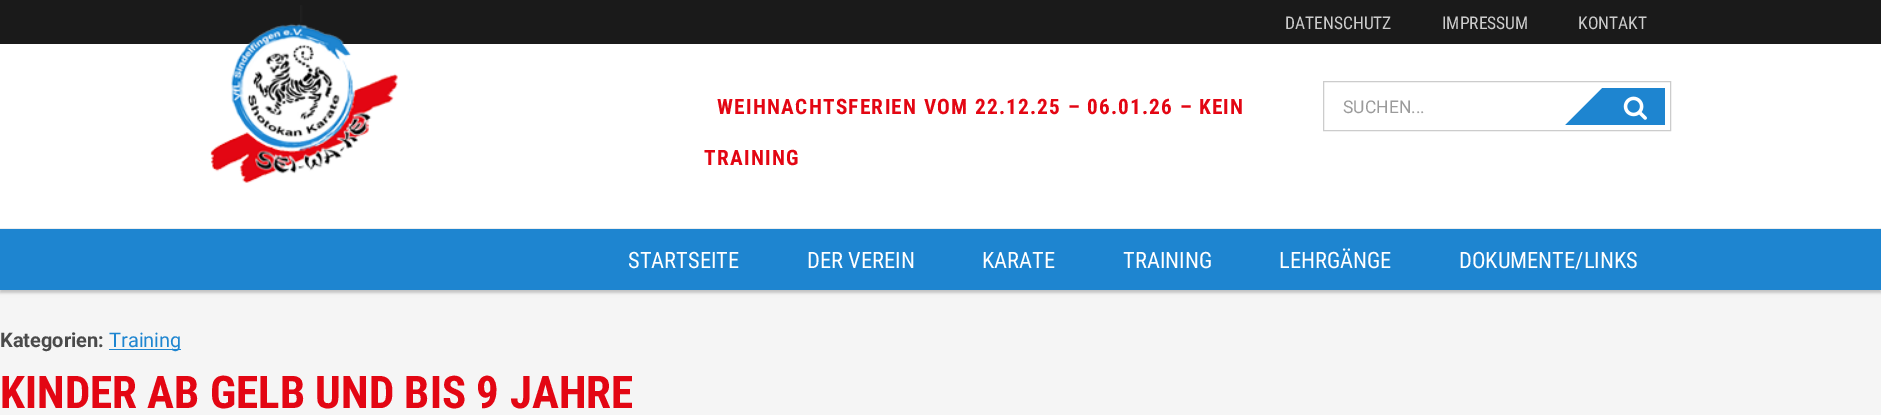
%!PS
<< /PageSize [1881 415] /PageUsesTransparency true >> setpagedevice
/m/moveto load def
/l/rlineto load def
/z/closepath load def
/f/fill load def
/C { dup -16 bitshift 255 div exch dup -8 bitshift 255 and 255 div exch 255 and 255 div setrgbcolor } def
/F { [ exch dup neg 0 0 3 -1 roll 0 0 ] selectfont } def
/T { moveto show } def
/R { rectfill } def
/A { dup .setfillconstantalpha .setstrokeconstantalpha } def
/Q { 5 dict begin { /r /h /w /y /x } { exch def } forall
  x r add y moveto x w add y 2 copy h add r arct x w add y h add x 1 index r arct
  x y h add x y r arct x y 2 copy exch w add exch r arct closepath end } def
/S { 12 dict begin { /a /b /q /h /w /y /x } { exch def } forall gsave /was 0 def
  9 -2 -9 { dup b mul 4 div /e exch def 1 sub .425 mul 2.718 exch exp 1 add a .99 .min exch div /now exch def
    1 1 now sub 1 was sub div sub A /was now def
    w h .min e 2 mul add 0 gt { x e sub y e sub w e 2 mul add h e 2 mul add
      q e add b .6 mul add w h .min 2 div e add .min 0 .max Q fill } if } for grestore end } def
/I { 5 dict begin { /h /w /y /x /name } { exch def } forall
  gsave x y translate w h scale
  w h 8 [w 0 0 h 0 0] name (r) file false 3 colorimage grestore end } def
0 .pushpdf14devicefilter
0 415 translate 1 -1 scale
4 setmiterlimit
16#F5F5F5 C
0 0 1881 415 R
16#000000 C
0 3 1881 290 0 1 .14 S
0 1 1881 290 0 3 .12 S
16#FFFFFF C
0 44 1881 184 R
16#1A1A1A C
0 0 1881 44 R
(1.rgb) 210 5 188 178 I
/RobotoCondensed-Regular 17.5 F
16#CCCCCC C
(DATENSCHUTZ) 1285 29 T
(IMPRESSUM) 1442 29 T
(KONTAKT) 1578 29 T
16#EDEDED C
0 228 1881 1 R
/RobotoCondensed-Bold 21.25 F
16#E30613 C
717 114 m 1.25 0 (WEIHNACHTSFERIEN VOM 22.12.25 – 06.01.26 – KEIN) ashow
704 165 m 1.25 0 (TRAINING) ashow
16#CCCCCC C
1323.5 81.5 347 49 rectstroke
/Roboto-Regular 17.5 F
16#9B9B9B C
(SUCHEN...) 1343 113 T
16#1E85D0 C
1565 88 100 37 R
16#FFFFFF C
1565 87.5 m 37.5 0 l -37.5 37.5 l z f
(2.rgb) 1623 96 24 24 I
16#1E85D0 C
0 229 1881 61 R
/RobotoCondensed-Regular 22.5 F
16#FFFFFF C
(STARTSEITE) 628 268 T
(DER VEREIN) 807 268 T
(KARATE) 982 268 T
(TRAINING) 1123 268 T
(LEHRGÄNGE) 1279 268 T
(DOKUMENTE/LINKS) 1459 268 T
/Roboto-Bold 20 F
16#4A4A4A C
(Kategorien:) 0 347 T
16#1E85D0 C
109 349 72 1 R
/Roboto-Regular 20 F
(Training) 109 347 T
/RobotoCondensed-Bold 45 F
16#E30613 C
(KINDER AB GELB UND BIS 9 JAHRE) 0 408 T
.poppdf14devicefilter showpage
